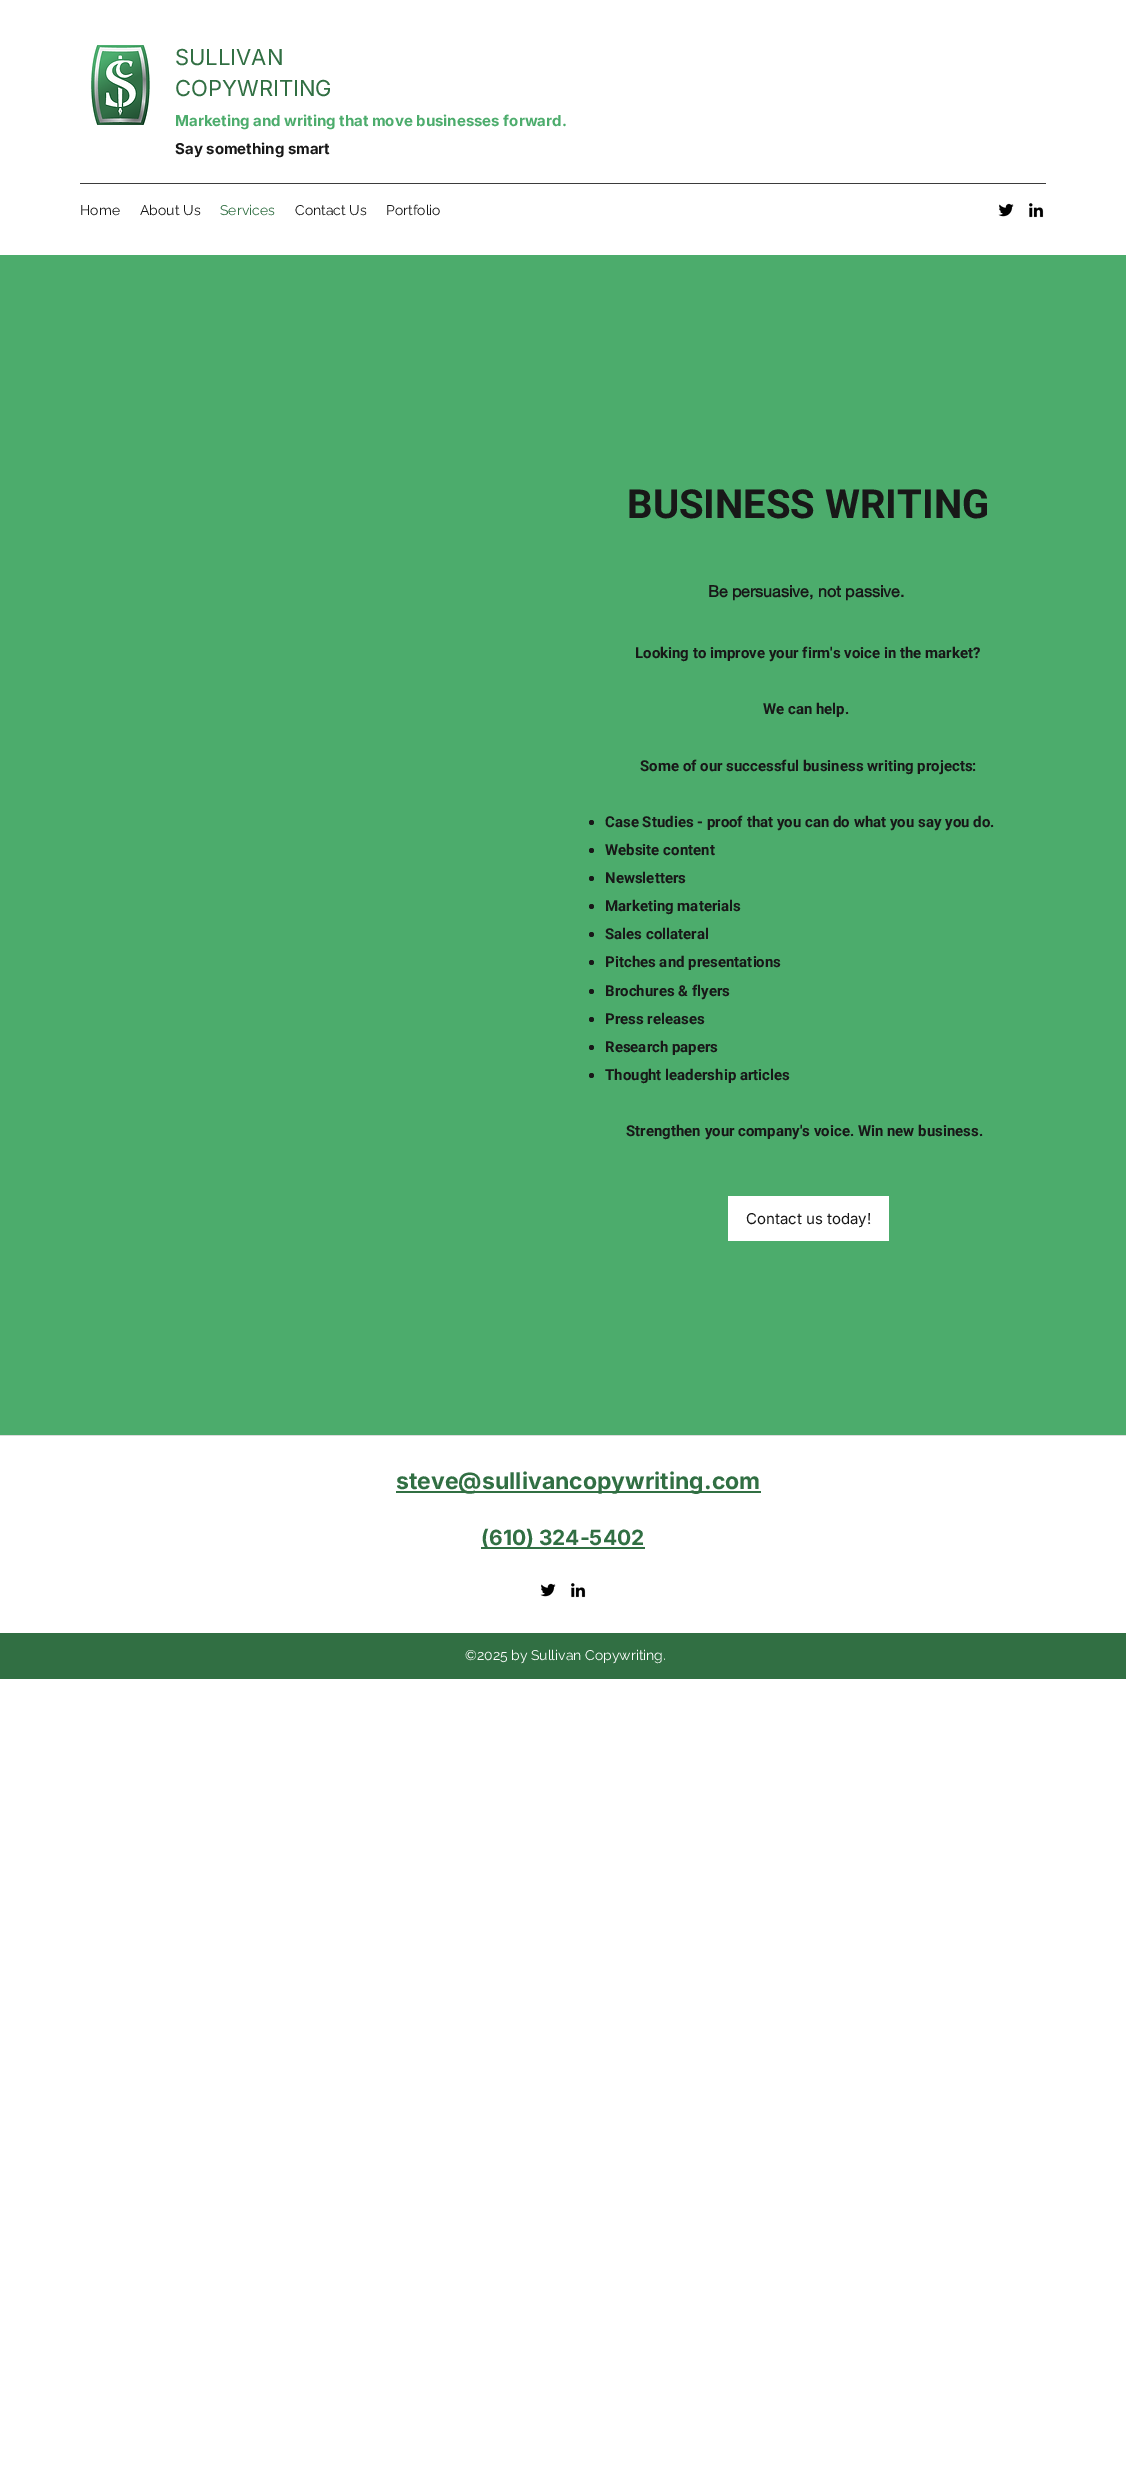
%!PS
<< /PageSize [1126 2475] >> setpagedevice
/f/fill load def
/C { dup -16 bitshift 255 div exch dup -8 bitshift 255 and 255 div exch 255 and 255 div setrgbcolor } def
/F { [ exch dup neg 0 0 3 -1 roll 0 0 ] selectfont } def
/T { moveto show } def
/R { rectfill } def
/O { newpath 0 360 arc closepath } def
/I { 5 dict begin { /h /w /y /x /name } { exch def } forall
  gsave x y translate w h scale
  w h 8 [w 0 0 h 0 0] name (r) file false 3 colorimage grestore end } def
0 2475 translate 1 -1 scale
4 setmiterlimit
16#FFFFFF C
0 0 1126 2475 R
(1.rgb) 91 45 59 80 I
/Inter-Regular 22 F
16#316F43 C
(SULLIVAN) 175 65 T
(COPYWRITING) 175 96 T
/Inter-Bold 15 F
16#4CAC6C C
(Marketing and writing that move businesses forward.) 175 126 T
16#181818 C
(Say something smart) 175 154 T
16#3B3B3B C
80 183 966 1 R
/Raleway-Regular 14 F
16#181818 C
(Home) 80 215 T
(About Us) 140 215 T
16#316F43 C
(Services) 220 215 T
16#181818 C
(Contact Us) 295 215 T
(Portfolio) 386 215 T
(2.rgb) 998 203 16 14 I
(3.rgb) 1029 203 15 15 I
16#4CAC6C C
0 255 1126 1180 R
/Roboto-Bold 40 F
16#181818 C
(BUSINESS WRITING) 627 518 T
/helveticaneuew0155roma-Bold 16 F
(Be persuasive, not passive.) 708 597 T
/Roboto-Bold 15 F
(Looking to improve your firm's voice in the market?) 635 658 T
(We can help.) 763 714 T
(Some of our successful business writing projects:) 640 771 T
591.5 822.5 2.5 O f
(Case Studies - proof that you can do what you say you do.) 605 827 T
591.5 850.5 2.5 O f
(Website content) 605 855 T
591.5 878.5 2.5 O f
(Newsletters) 605 883 T
591.5 906.5 2.5 O f
(Marketing materials) 605 911 T
591.5 934.5 2.5 O f
(Sales collateral) 605 939 T
591.5 962.5 2.5 O f
(Pitches and presentations) 605 967 T
591.5 991.5 2.5 O f
(Brochures & flyers) 605 996 T
591.5 1019.5 2.5 O f
(Press releases) 605 1024 T
591.5 1047.5 2.5 O f
(Research papers) 605 1052 T
591.5 1075.5 2.5 O f
(Thought leadership articles) 605 1080 T
(Strengthen your company's voice. Win new business.) 626 1136 T
16#FFFFFF C
728 1196 161 45 R
/Inter-Regular 15 F
16#181818 C
(Contact us today!) 746 1224 T
16#DCDCDC C
0 1435 1126 1 R
16#316F43 C
396 1491 365 2 R
/Inter-Bold 23 F
(steve@sullivancopywriting.com) 396 1489 T
/Inter-Bold 21 F
(\(610\) 324-5402) 481 1545 T
481 1547 164 2 R
(2.rgb) 540 1583 16 14 I
(3.rgb) 571 1583 15 15 I
0 1633 1126 46 R
/Raleway-Regular 14 F
16#FFFFFF C
(©2025 by Sullivan Copywriting.) 465 1660 T
showpage
